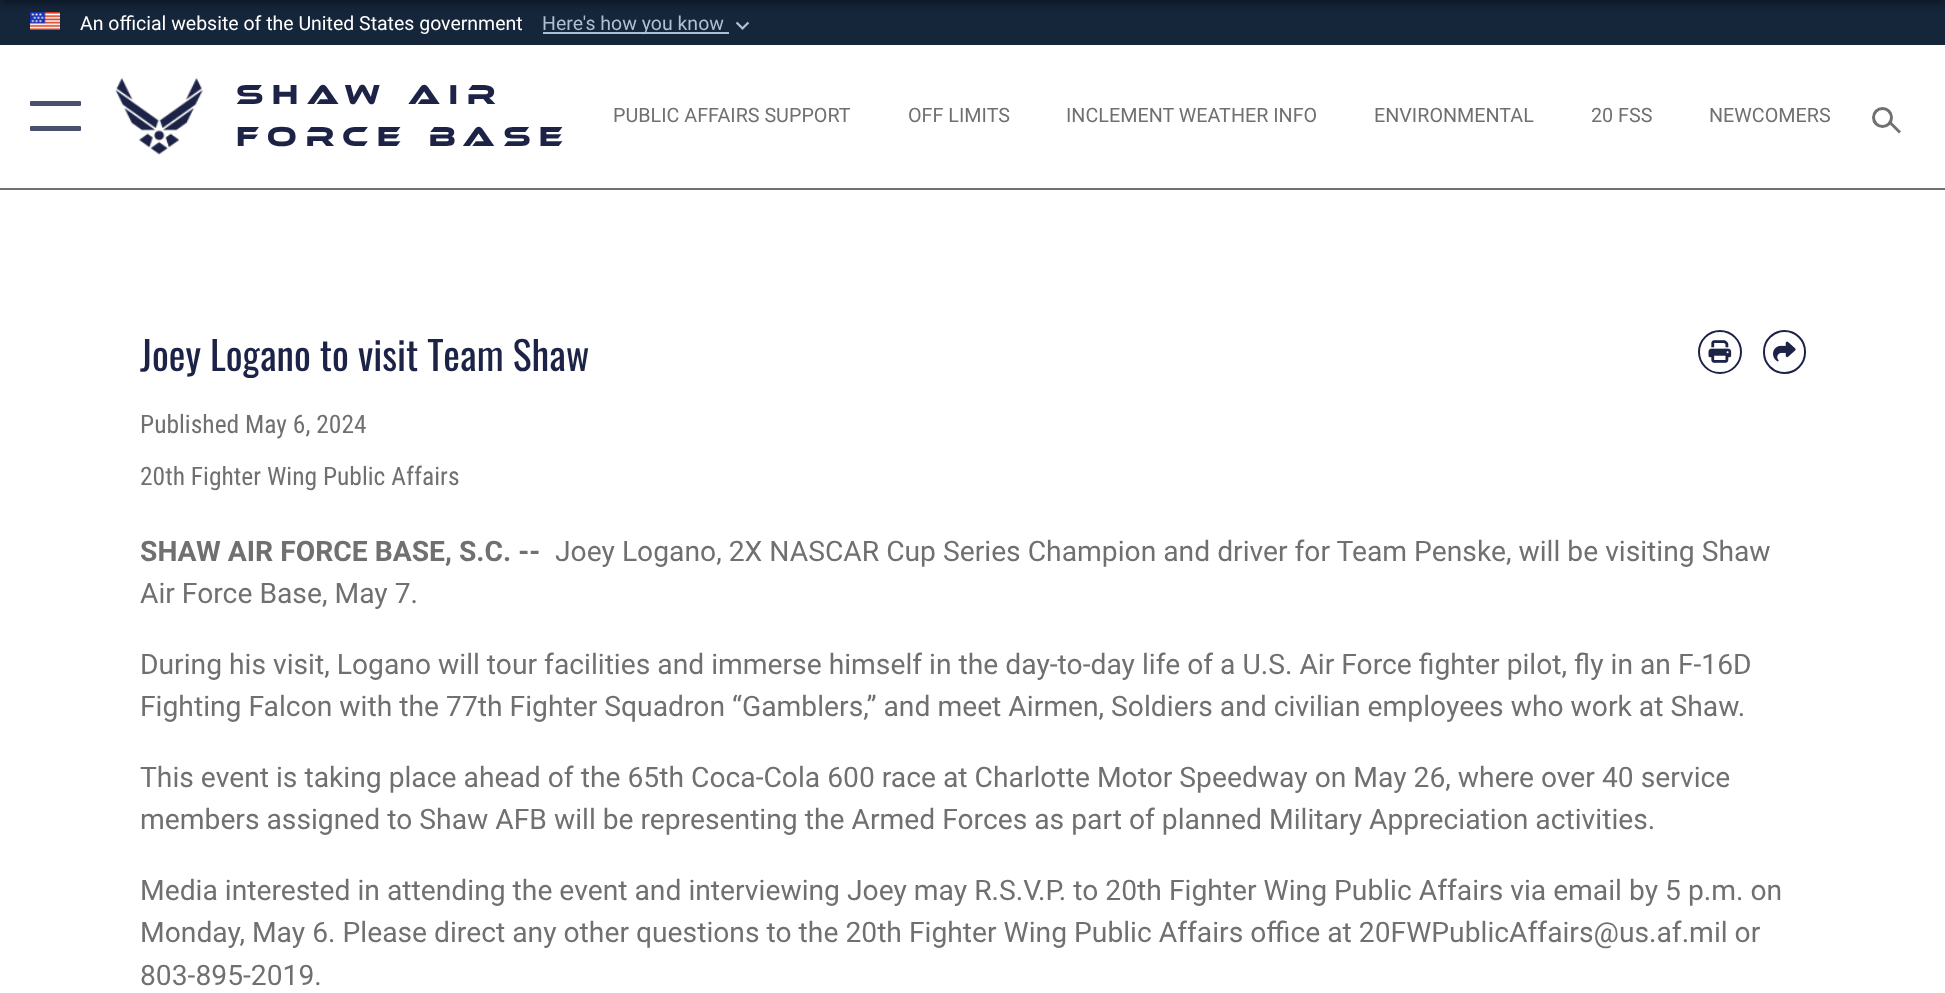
<svg xmlns="http://www.w3.org/2000/svg" width="1945" height="993" viewBox="0 0 1945 993">
  <style>
    .t1 { font: 19.5px Roboto; fill: #fff; }
    .t2 { font: 19.5px Roboto; fill: #aebfd4; }
    .t3 { font: 28.28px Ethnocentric; letter-spacing: 8.5px; fill: #1c2347; }
    .t4 { font: 19.75px Roboto; fill: #707070; }
    .t5 { font: 39.6px Oswald; fill: #1c2347; }
    .t6 { font: 25.5px Roboto Condensed; fill: #707070; }
    .t7 { font: 28.28px Roboto; fill: #707070; }
    .t8 { font: bold 28.28px Roboto; fill: #707070; }
  </style>
  <rect width="100%" height="100%" fill="#fff"/>
  <rect x="0" y="0" width="1945" height="45" fill="#15263b"/>
  <image x="30" y="12" width="30" height="18" href="images/1.png"/>
  <text x="80" y="30" class="t1">An official website of the United States government</text>
  <rect x="543" y="32" width="186" height="2" fill="#aebfd4"/>
  <text x="542" y="30" class="t2">Here's how you know</text>
  <image x="735" y="21" width="15" height="9" href="images/2.png"/>
  <rect x="0" y="-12" width="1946" height="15" fill="#02040680" filter="blur(4px)"/>
  <rect x="0" y="188" width="1945" height="2" fill="#707070"/>
  <rect x="30" y="101" width="51" height="5" rx="1" fill="#49506d"/>
  <rect x="30" y="126" width="51" height="5" rx="1" fill="#49506d"/>
  <image x="115" y="77" width="88" height="78" href="images/3.png"/>
  <text x="236" y="104" class="t3">Shaw Air</text>
  <text x="236" y="146" class="t3">Force Base</text>
  <text x="613" y="122" class="t4">PUBLIC AFFAIRS SUPPORT</text>
  <text x="908" y="122" class="t4">OFF LIMITS</text>
  <text x="1066" y="122" class="t4">INCLEMENT WEATHER INFO</text>
  <text x="1374" y="122" class="t4">ENVIRONMENTAL</text>
  <text x="1591" y="122" class="t4">20 FSS</text>
  <text x="1709" y="122" class="t4">NEWCOMERS</text>
  <circle cx="1882.5" cy="117.5" r="9" fill="none" stroke="#707070" stroke-width="3"/>
  <path d="M1890.5 121L1901 131.5L1899 133.5L1888.5 123Z" fill="#707070"/>
  <text x="140" y="371" class="t5">Joey Logano to visit Team Shaw</text>
  <circle cx="1720" cy="352" r="21" fill="none" stroke="#1c2347" stroke-width="2"/>
  <image x="1708" y="340" width="24" height="23" href="images/4.png"/>
  <rect x="1764" y="331" width="41" height="42" rx="20.5" fill="none" stroke="#1c2347" stroke-width="2"/>
  <image x="1773" y="341" width="23" height="21" href="images/5.png"/>
  <text x="140" y="433" class="t6">Published May 6, 2024</text>
  <text x="140" y="485" class="t6">20th Fighter Wing Public Affairs</text>
  <text x="555" y="561" class="t7">Joey Logano, 2X NASCAR Cup Series Champion and driver for Team Penske, will be visiting Shaw</text>
  <text x="140" y="603" class="t7">Air Force Base, May 7.</text>
  <text x="140" y="561" class="t8">SHAW AIR FORCE BASE, S.C. --</text>
  <text x="140" y="674" class="t7">During his visit, Logano will tour facilities and immerse himself in the day-to-day life of a U.S. Air Force fighter pilot, fly in an F-16D</text>
  <text x="140" y="716" class="t7">Fighting Falcon with the 77th Fighter Squadron “Gamblers,” and meet Airmen, Soldiers and civilian employees who work at Shaw.</text>
  <text x="140" y="787" class="t7">This event is taking place ahead of the 65th Coca-Cola 600 race at Charlotte Motor Speedway on May 26, where over 40 service</text>
  <text x="140" y="829" class="t7">members assigned to Shaw AFB will be representing the Armed Forces as part of planned Military Appreciation activities.</text>
  <text x="140" y="900" class="t7">Media interested in attending the event and interviewing Joey may R.S.V.P. to 20th Fighter Wing Public Affairs via email by 5 p.m. on</text>
  <text x="140" y="942" class="t7">Monday, May 6. Please direct any other questions to the 20th Fighter Wing Public Affairs office at 20FWPublicAffairs@us.af.mil or</text>
  <text x="140" y="985" class="t7">803-895-2019.</text>
</svg>
